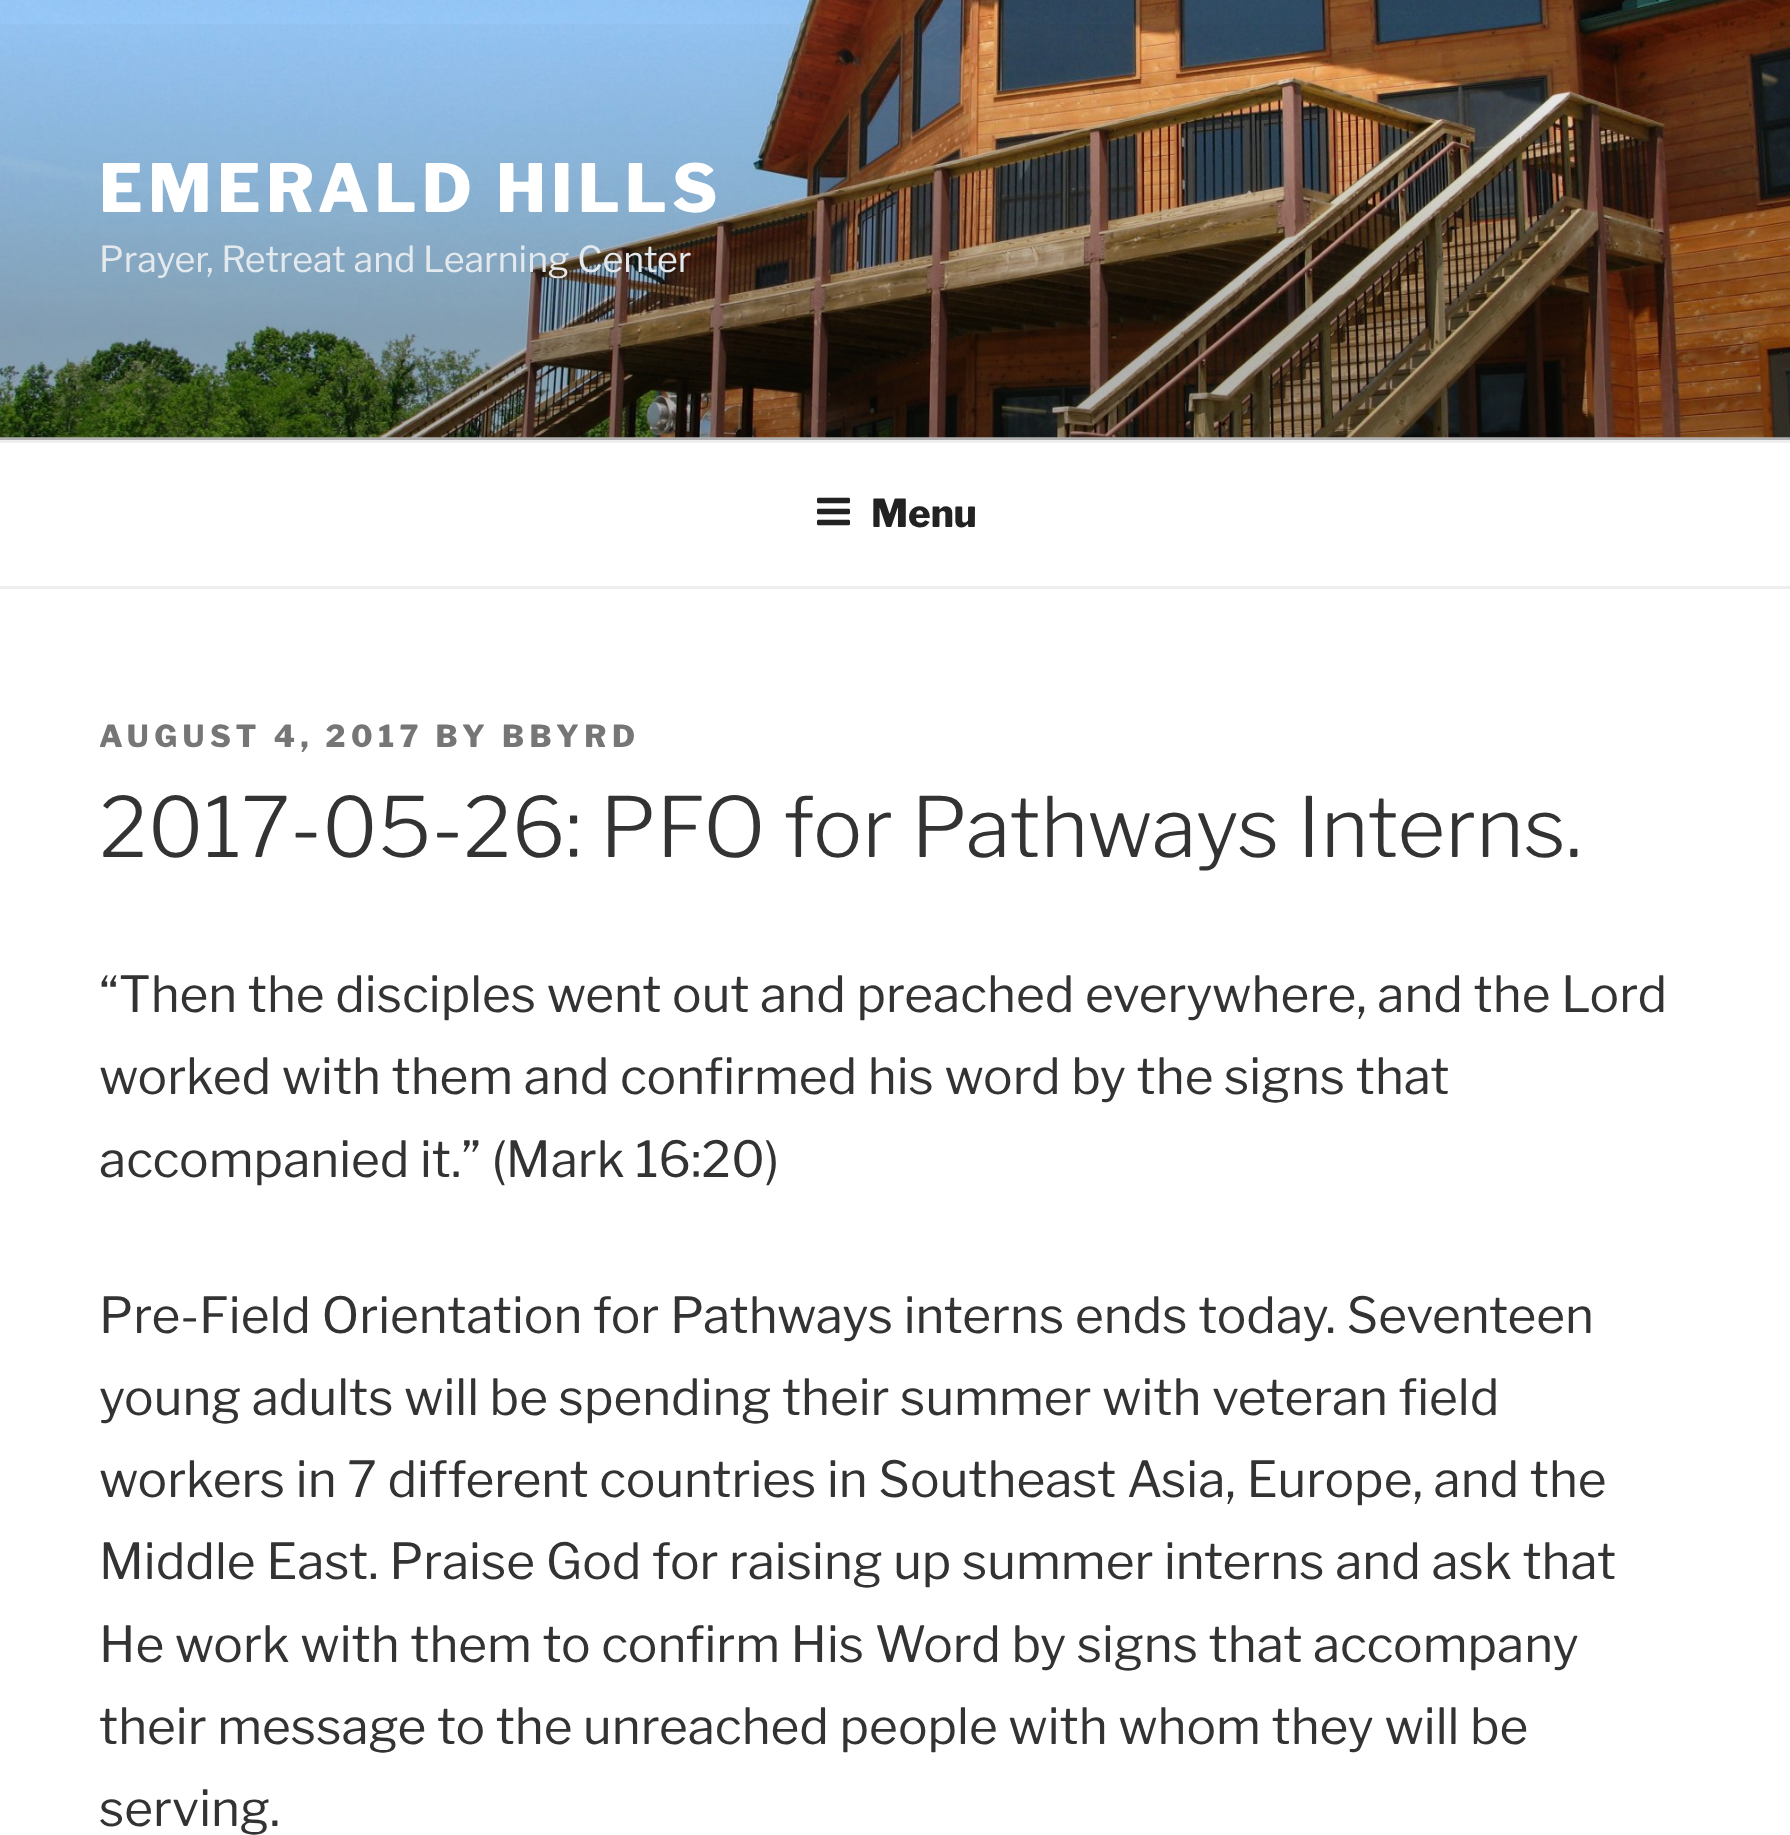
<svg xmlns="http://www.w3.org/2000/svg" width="1790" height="1835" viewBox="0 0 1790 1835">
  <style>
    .t1 { font: 100 66px Libre Franklin; letter-spacing: 5.25px; fill: #fff; }
    .t2 { font: 100 35.75px 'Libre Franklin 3'; fill: #e4e9ed; }
    .t3 { font: 100 38.5px Libre Franklin; fill: #222; }
    .t4 { font: 100 30.25px Libre Franklin; letter-spacing: 5.5px; fill: #767676; }
    .t5 { font: 100 82.5px 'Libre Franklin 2'; fill: #333; }
    .t6 { font: 100 49.5px 'Libre Franklin 3'; fill: #333; }
  </style>
  <defs>
    <linearGradient id="g1" gradientUnits="userSpaceOnUse" x1="895" y1="0" x2="895" y2="440"><stop offset="0" stop-color="#000" stop-opacity="0"/><stop offset="0.75" stop-color="#000" stop-opacity="0.3"/><stop offset="1" stop-color="#000" stop-opacity="0.3"/></linearGradient>
  </defs>
  <rect width="100%" height="100%" fill="#fff"/>
  <rect x="0" y="437" width="1790" height="3" fill="#fafafa"/>
  <image x="0" y="0" width="1790" height="438" href="images/1.png"/>
  <rect x="0" y="24" width="1790" height="416" fill="url(#g1)"/>
  <text x="99" y="212" class="t1">EMERALD HILLS</text>
  <text x="99" y="272" class="t2">Prayer, Retreat and Learning Center</text>
  <rect x="0" y="440" width="1790" height="3" fill="#eee"/>
  <rect x="0" y="586" width="1790" height="3" fill="#eee"/>
  <image x="817" y="497" width="33" height="29" href="images/2.png"/>
  <text x="871" y="527" class="t3">Menu</text>
  <text x="99" y="747" class="t4">AUGUST 4, 2017 BY BBYRD</text>
  <text x="99" y="857" class="t5">2017-05-26: PFO for Pathways Interns.</text>
  <text x="99" y="1012" class="t6">“Then the disciples went out and preached everywhere, and the Lord</text>
  <text x="99" y="1094" class="t6">worked with them and confirmed his word by the signs that</text>
  <text x="99" y="1177" class="t6">accompanied it.” (Mark 16:20)</text>
  <text x="99" y="1333" class="t6">Pre-Field Orientation for Pathways interns ends today. Seventeen</text>
  <text x="99" y="1415" class="t6">young adults will be spending their summer with veteran field</text>
  <text x="99" y="1497" class="t6">workers in 7 different countries in Southeast Asia, Europe, and the</text>
  <text x="99" y="1579" class="t6">Middle East. Praise God for raising up summer interns and ask that</text>
  <text x="99" y="1662" class="t6">He work with them to confirm His Word by signs that accompany</text>
  <text x="99" y="1744" class="t6">their message to the unreached people with whom they will be</text>
  <text x="99" y="1826" class="t6">serving.</text>
</svg>
